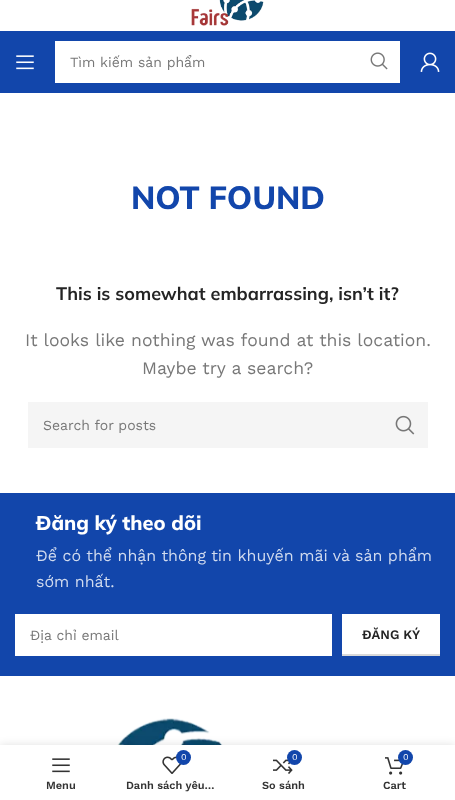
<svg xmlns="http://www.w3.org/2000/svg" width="455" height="800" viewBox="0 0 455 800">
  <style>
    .t1 { font: 14px Work Sans; fill: #777; }
    .t2 { font: 800 32px Mulish; fill: #1246ab; }
    .t3 { font: bold 18px Mulish; fill: #242424; }
    .t4 { font: 17.6px Work Sans; fill: #777; }
    .t5 { font: 800 20px Mulish; fill: #fff; }
    .t6 { font: 16px Work Sans; fill: #d0daee; }
    .t7 { font: 600 13px Work Sans; fill: #242424; }
    .t8 { font: 600 11px Work Sans; fill: #333; }
    .t9 { font: 9px Work Sans; fill: #fff; }
  </style>
  <rect width="100%" height="100%" fill="#fff"/>
  <image x="191" y="0" width="73" height="26" href="images/1.png"/>
  <rect x="0" y="31" width="455" height="62" fill="#1246ab"/>
  <image x="16" y="55" width="18" height="15" href="images/2.png"/>
  <rect x="55" y="41" width="345" height="42" fill="#fff"/>
  <text x="70" y="67" class="t1">Tìm kiếm sản phẩm</text>
  <image x="370" y="52" width="18" height="18" href="images/3.png"/>
  <image x="420" y="52" width="20" height="20" href="images/4.png"/>
  <text x="131" y="209" class="t2">NOT FOUND</text>
  <text x="56" y="300" class="t3">This is somewhat embarrassing, isn’t it?</text>
  <text x="25" y="346" class="t4">It looks like nothing was found at this location.</text>
  <text x="142" y="374" class="t4">Maybe try a search?</text>
  <rect x="28" y="402" width="400" height="46" fill="#f5f5f5"/>
  <text x="43" y="430" class="t1">Search for posts</text>
  <image x="395" y="415" width="20" height="20" href="images/5.png"/>
  <rect x="0" y="493" width="455" height="183" fill="#1246ab"/>
  <text x="36" y="530" class="t5">Đăng ký theo dõi</text>
  <text x="36" y="561" class="t6">Để có thể nhận thông tin khuyến mãi và sản phẩm</text>
  <text x="36" y="587" class="t6">sớm nhất.</text>
  <rect x="15" y="614" width="317" height="42" fill="#fff"/>
  <text x="30" y="640" class="t1">Địa chỉ email</text>
  <rect x="342" y="614" width="98" height="40" fill="#fff"/>
  <rect x="342" y="654" width="98" height="2" fill="#d9d9d9"/>
  <text x="362" y="639" class="t7">ĐĂNG KÝ</text>
  <image x="117" y="718" width="106" height="27" href="images/6.png"/>
  <rect x="0" y="745" width="455" height="55" fill="#0000001f" filter="blur(4.5px)"/>
  <rect x="0" y="745" width="455" height="55" fill="#fff"/>
  <image x="52" y="758" width="18" height="15" href="images/7.png"/>
  <text x="46" y="789" class="t8">Menu</text>
  <image x="162" y="756" width="20" height="18" href="images/8.png"/>
  <circle cx="183.5" cy="757.5" r="7.5" fill="#1246ab"/>
  <text x="181" y="760" class="t9">0</text>
  <text x="126" y="789" class="t8">Danh sách yêu…</text>
  <image x="273" y="759" width="20" height="15" href="images/9.png"/>
  <circle cx="294.5" cy="757.5" r="7.5" fill="#1246ab"/>
  <text x="292" y="760" class="t9">0</text>
  <text x="262" y="789" class="t8">So sánh</text>
  <image x="385" y="757" width="19" height="18" href="images/10.png"/>
  <circle cx="405.5" cy="757.5" r="7.5" fill="#1246ab"/>
  <text x="403" y="760" class="t9">0</text>
  <text x="383" y="789" class="t8">Cart</text>
</svg>
